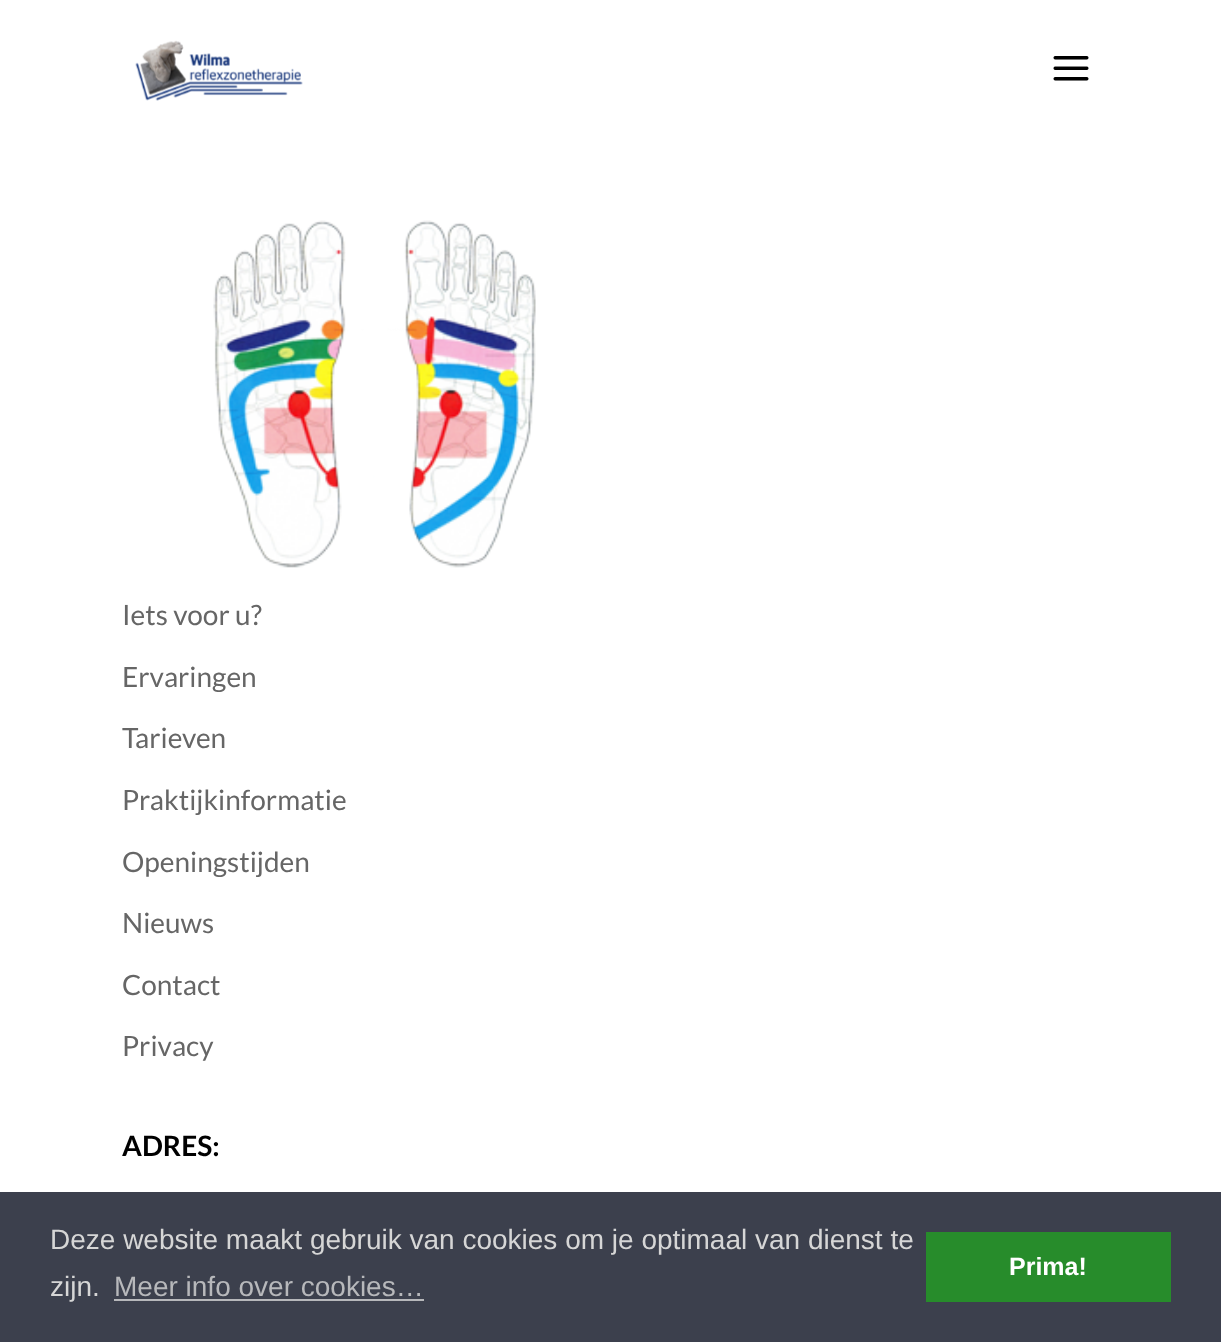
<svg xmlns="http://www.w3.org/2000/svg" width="1221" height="1342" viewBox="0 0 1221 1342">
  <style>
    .t1 { font: 28px Lato; fill: #666; }
    .t2 { font: bold 28px Lato; fill: #000; }
    .t3 { font: 28px Liberation Sans; fill: #d6d6d6; }
    .t4 { font: 28px Liberation Sans; fill: #b7b8bb; }
    .t5 { font: bold 25px Liberation Sans; fill: #fff; }
  </style>
  <rect width="100%" height="100%" fill="#fff"/>
  <image x="135" y="40" width="168" height="61" href="images/1.png"/>
  <image x="1053" y="56" width="36" height="25" href="images/2.png"/>
  <image x="213" y="220" width="323" height="348" href="images/3.png"/>
  <text x="122" y="625" class="t1">Iets voor u?</text>
  <text x="122" y="687" class="t1">Ervaringen</text>
  <text x="122" y="748" class="t1">Tarieven</text>
  <text x="122" y="810" class="t1">Praktijkinformatie</text>
  <text x="122" y="872" class="t1">Openingstijden</text>
  <text x="122" y="933" class="t1">Nieuws</text>
  <text x="122" y="995" class="t1">Contact</text>
  <text x="122" y="1056" class="t1">Privacy</text>
  <text x="122" y="1156" class="t2">ADRES:</text>
  <rect x="0" y="1192" width="1221" height="150" fill="#3c404d"/>
  <text x="50" y="1249" class="t3">Deze website maakt gebruik van cookies om je optimaal van dienst te</text>
  <text x="50" y="1296" class="t3">zijn.</text>
  <text x="114" y="1296" class="t4">Meer info over cookies…</text>
  <rect x="114" y="1299" width="310" height="2" fill="#b7b8bb"/>
  <rect x="926" y="1232" width="245" height="70" fill="#278c2b"/>
  <text x="1009" y="1275" class="t5">Prima!</text>
</svg>
